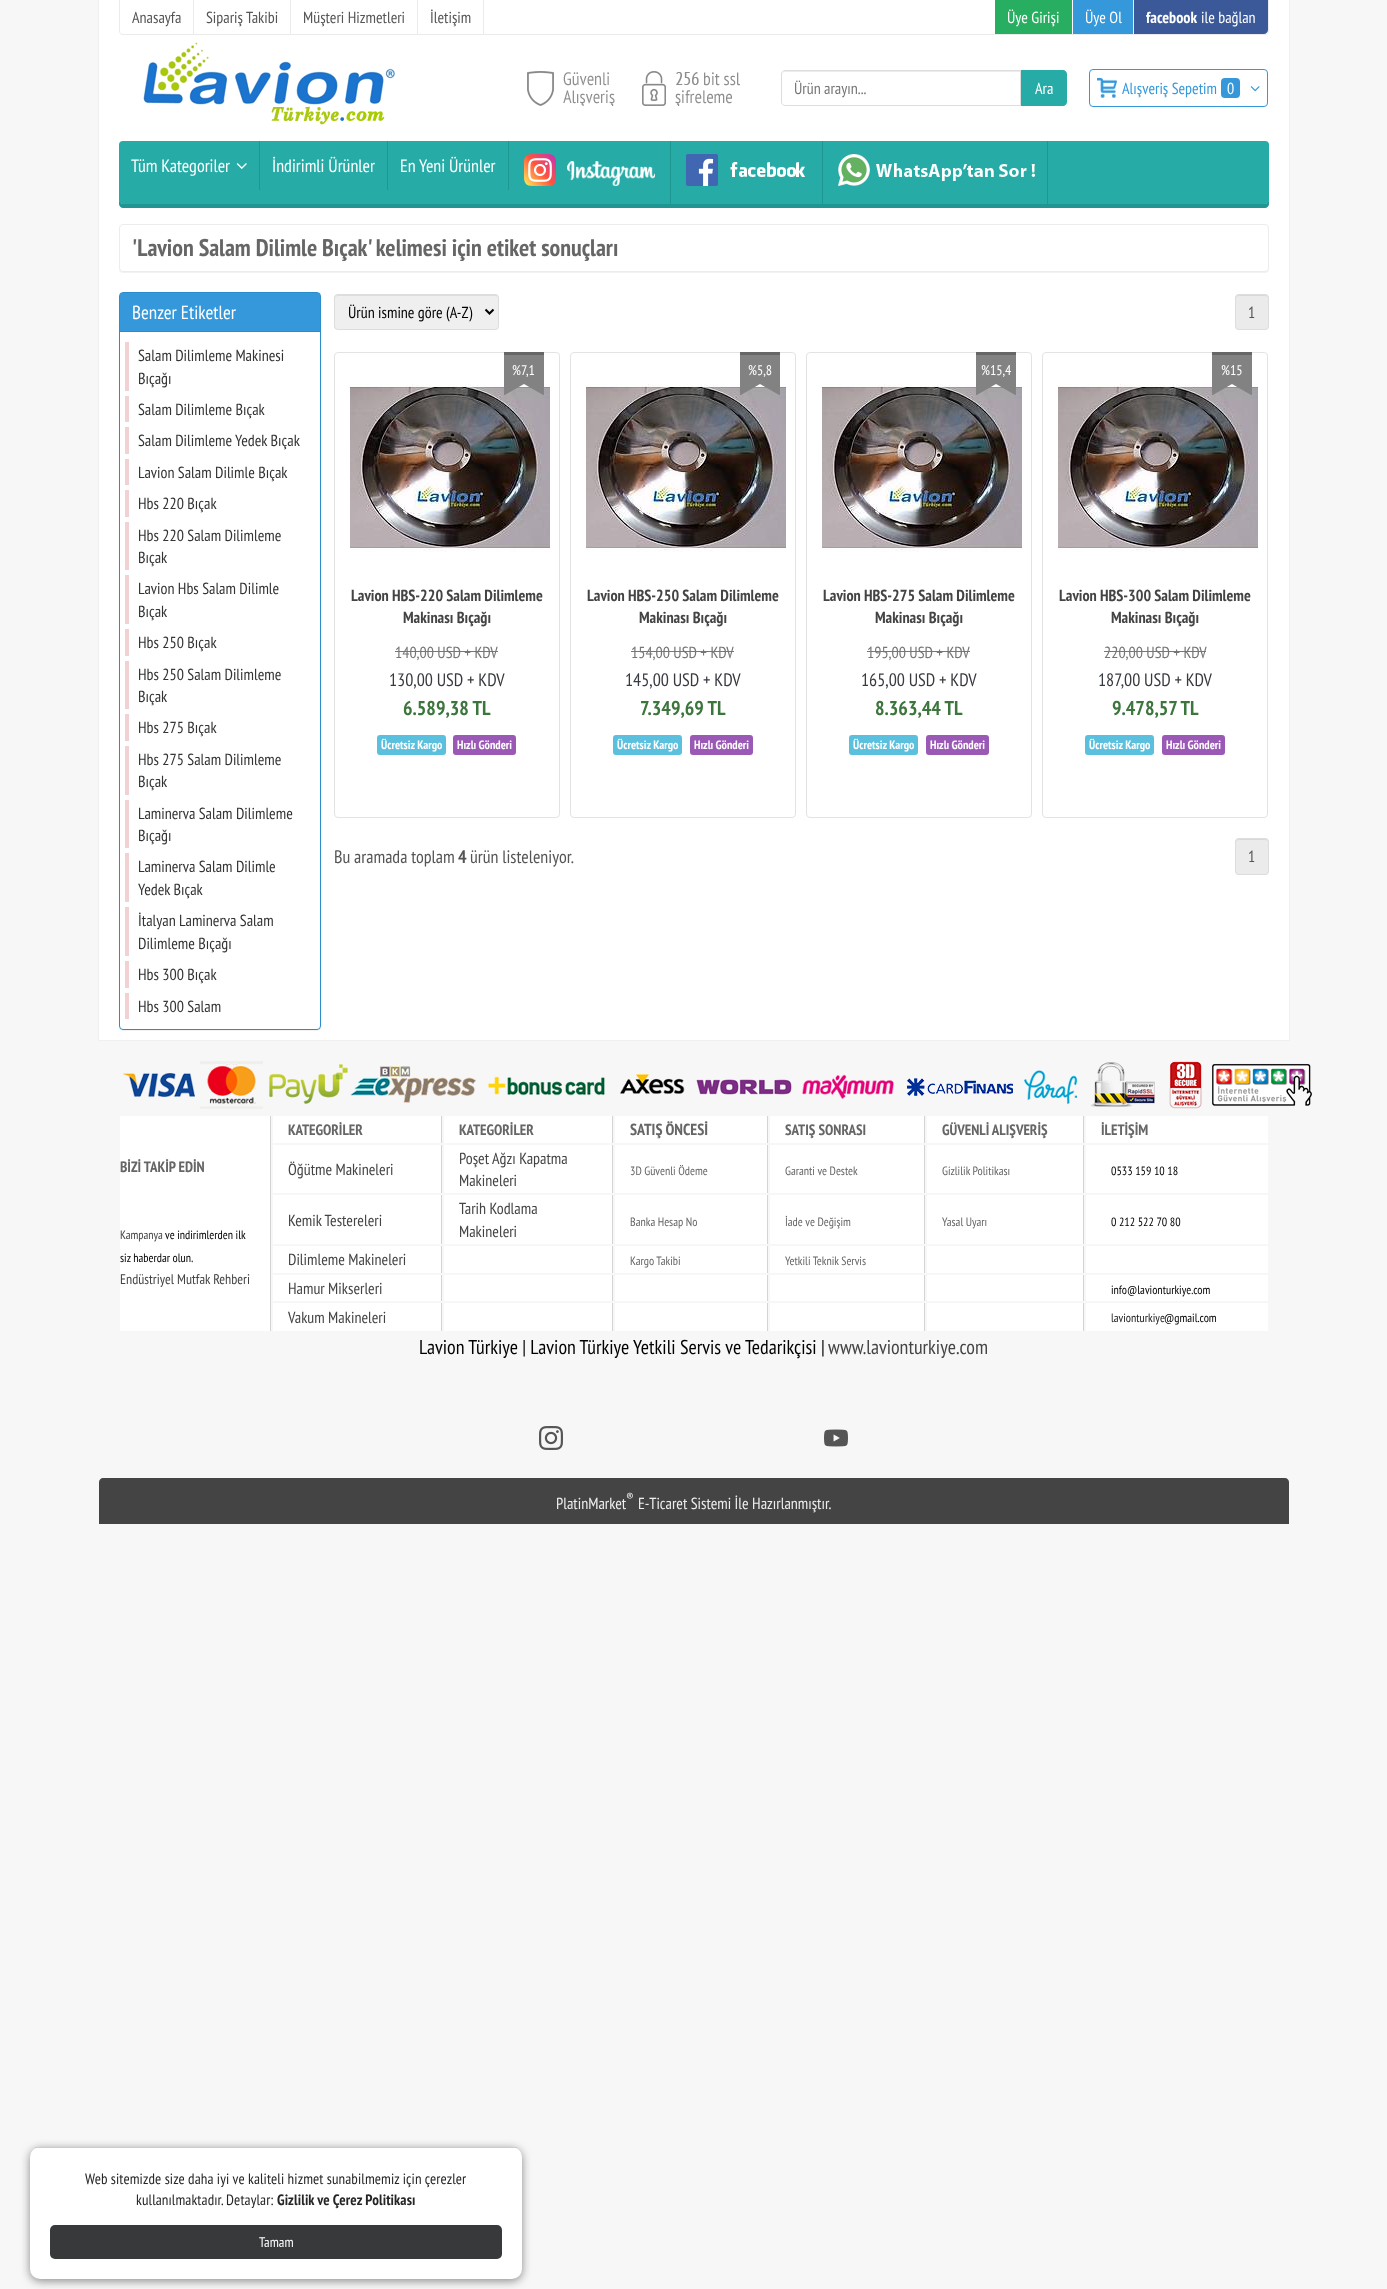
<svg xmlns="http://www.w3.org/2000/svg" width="1387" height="2289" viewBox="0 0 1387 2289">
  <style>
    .t1 { font: 16px PT Sans Narrow; fill: #555; }
    .t2 { font: 16px PT Sans Narrow; fill: #fff; }
    .t3 { font: bold 16px PT Sans Narrow; fill: #fff; }
    .t4 { font: 16px PT Sans Narrow; fill: #757575; }
    .t5 { font: 16px PT Sans Narrow; fill: #3498db; }
    .t6 { font: 18px PT Sans Narrow; fill: #fff; }
    .t7 { font: 15px PT Sans Narrow; letter-spacing: 0.1px; fill: #262626; }
    .t8 { font: bold 15px PT Sans Narrow; letter-spacing: 0.1px; fill: #262626; }
    .t9 { font: 14px PT Sans Narrow; fill: #fff; }
    .t10 { font: bold 24px PT Sans Narrow; fill: #666; }
    .t11 { font: 19px PT Sans Narrow; fill: #fff; }
    .t12 { font: 16px PT Sans Narrow; fill: #333; }
    .t13 { font: 16px PT Sans Narrow; fill: #000; }
    .t14 { font: bold 12px PT Sans Narrow; fill: #fff; }
    .t15 { font: bold 16px PT Sans Narrow; fill: #444; }
    .t16 { font: 18px PT Sans Narrow; fill: #373a3f; }
    .t17 { font: bold 20px PT Sans Narrow; fill: #3c763d; }
    .t18 { font: 18px PT Sans Narrow; fill: #555; }
    .t19 { font: bold 18px PT Sans Narrow; fill: #555; }
    .t20 { font: bold 15px PT Sans Narrow; fill: #666; }
    .t21 { font: bold 16px PT Sans Narrow; fill: #666; }
    .t22 { font: 12px PT Sans Narrow; fill: #444; }
    .t23 { font: 12px PT Sans Narrow; fill: #000; }
    .t24 { font: 14px PT Sans Narrow; fill: #444; }
    .t25 { font: 16px PT Sans Narrow; fill: #444; }
    .t26 { font: 12px PT Sans Narrow; fill: #666; }
    .t27 { font: 12px PT Sans Narrow; fill: #1a1a1a; }
    .t28 { font: 20px PT Sans Narrow; fill: #000; }
    .t29 { font: 20px PT Sans Narrow; fill: #444; }
    .t30 { font: 16px PT Sans Narrow; fill: #eee; }
    .t31 { font: 13px PT Sans Narrow; fill: #eee; }
  </style>
  <defs>
    <clipPath id="clip1"><path d="M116 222H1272V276H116ZM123 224H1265C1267 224 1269 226 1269 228V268C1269 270 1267 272 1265 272H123C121 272 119 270 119 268V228C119 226 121 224 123 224Z" clip-rule="evenodd"/></clipPath>
    <clipPath id="clip2"><path d="M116 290H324V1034H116ZM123 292H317C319 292 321 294 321 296V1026C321 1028 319 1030 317 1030H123C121 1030 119 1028 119 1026V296C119 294 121 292 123 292Z" clip-rule="evenodd"/></clipPath>
  </defs>
  <rect width="100%" height="100%" fill="#f7f7f7"/>
  <rect x="99" y="0" width="1190" height="1040" fill="#fff"/>
  <rect x="1289" y="0" width="1" height="1040" fill="#f0f0f0"/>
  <rect x="98" y="0" width="1" height="1040" fill="#f0f0f0"/>
  <path d="M119 0H1269V31C1269 33 1267 35 1265 35H123C121 35 119 33 119 31ZM120 0H1268V31C1268 33 1267 34 1265 34H123C121 34 120 33 120 31Z" fill="#ebebeb" fill-rule="evenodd"/>
  <rect x="193" y="0" width="1" height="34" fill="#ebebeb"/>
  <text x="132" y="23" class="t1">Anasayfa</text>
  <rect x="290" y="0" width="1" height="34" fill="#ebebeb"/>
  <text x="206" y="23" class="t1">Sipariş Takibi</text>
  <rect x="417" y="0" width="1" height="34" fill="#ebebeb"/>
  <text x="303" y="23" class="t1">Müşteri Hizmetleri</text>
  <rect x="483" y="0" width="1" height="34" fill="#ebebeb"/>
  <text x="430" y="23" class="t1">İletişim</text>
  <rect x="995" y="0" width="77" height="34" fill="#27ae60"/>
  <text x="1007" y="23" class="t2">Üye Girişi</text>
  <rect x="1073" y="0" width="60" height="34" fill="#3498db"/>
  <text x="1085" y="23" class="t2">Üye Ol</text>
  <path d="M1133 0H1268V30C1268 32 1266 34 1264 34H1133Z" fill="#3b5998"/>
  <rect x="1133" y="0" width="1" height="34" fill="#ebebeb"/>
  <text x="1146" y="23" class="t3">facebook</text>
  <text x="1201" y="23" class="t2">ile bağlan</text>
  <image x="143" y="42" width="252" height="83" href="images/1.png"/>
  <image x="527" y="71" width="213" height="35" href="images/2.png"/>
  <path d="M785 72H1020V71H785C783 71 782 73 782 75C782 73 783 72 785 72Z" fill="#ececec"/>
  <path d="M785 70.5H1020.5V105.5H785C783 105.5 781.5 104 781.5 102V74C781.5 72 783 70.5 785 70.5Z" fill="none" stroke="#ddd"/>
  <text x="794" y="94" class="t4">Ürün arayın...</text>
  <path d="M1021 70H1063C1065 70 1067 72 1067 74V102C1067 104 1065 106 1063 106H1021Z" fill="#27aba6"/>
  <text x="1035" y="94" class="t2">Ara</text>
  <image x="1097" y="77" width="20" height="21" href="images/3.png"/>
  <rect x="1089.5" y="69.5" width="178" height="37" rx="3.5" fill="none" stroke="#3498db"/>
  <text x="1122" y="94" class="t5">Alışveriş Sepetim</text>
  <rect x="1221" y="78" width="19" height="20" rx="4" fill="#3498db"/>
  <text x="1227" y="94" class="t2">0</text>
  <image x="1250" y="86" width="10" height="6" href="images/4.png"/>
  <rect x="119" y="141" width="1150" height="63" rx="4" fill="#27aba6"/>
  <path d="M119 200V204C119 206 121 208 123 208H1265C1267 208 1269 206 1269 204V200C1269 202 1267 204 1265 204H123C121 204 119 202 119 200Z" fill="#1f9691"/>
  <rect x="259" y="141" width="1" height="49" fill="#1f9691"/>
  <text x="131" y="172" class="t6">Tüm Kategoriler</text>
  <image x="236" y="163" width="11" height="6" href="images/5.png"/>
  <rect x="387" y="141" width="1" height="49" fill="#1f9691"/>
  <text x="272" y="172" class="t6">İndirimli Ürünler</text>
  <rect x="508" y="141" width="1" height="49" fill="#1f9691"/>
  <text x="400" y="172" class="t6">En Yeni Ürünler</text>
  <rect x="670" y="141" width="1" height="63" fill="#1f9691"/>
  <image x="524" y="154" width="131" height="32" href="images/6.png"/>
  <rect x="822" y="141" width="1" height="63" fill="#1f9691"/>
  <image x="686" y="154" width="119" height="32" href="images/7.png"/>
  <rect x="1047" y="141" width="1" height="63" fill="#1f9691"/>
  <image x="838" y="154" width="197" height="32" href="images/8.png"/>
  <rect x="30" y="2149" width="492" height="132" rx="10" fill="#888" filter="blur(5px)"/>
  <rect x="30" y="2147" width="492" height="132" rx="10" fill="#fff"/>
  <rect x="35" y="2147" width="482" height="1" fill="#ccc"/>
  <text x="85" y="2184" class="t7">Web sitemizde size daha iyi ve kaliteli hizmet sunabilmemiz için çerezler</text>
  <text x="136" y="2205" class="t7">kullanılmaktadır. Detaylar:</text>
  <text x="277" y="2205" class="t8">Gizlilik ve Çerez Politikası</text>
  <rect x="50" y="2225" width="452" height="34" rx="5" fill="#37393b"/>
  <text x="259" y="2247" class="t9">Tamam</text>
  <g clip-path="url(#clip1)">
    <rect x="119" y="225" width="1150" height="48" rx="4" fill="#0000000d" filter="blur(0.5px)"/>
  </g>
  <rect x="119.5" y="224.5" width="1149" height="47" rx="3.5" fill="none" stroke="#ececec"/>
  <text x="132" y="256" class="t10">'Lavion Salam Dilimle Bıçak' kelimesi için etiket sonuçları</text>
  <g clip-path="url(#clip2)">
    <rect x="119" y="293" width="202" height="738" rx="4" fill="#0000000d" filter="blur(0.5px)"/>
  </g>
  <rect x="119.5" y="292.5" width="201" height="737" rx="3.5" fill="none" stroke="#2b8ccd"/>
  <rect x="120" y="293" width="200" height="38" fill="#3498db"/>
  <rect x="120" y="331" width="200" height="1" fill="#2b8ccd"/>
  <text x="132" y="319" class="t11">Benzer Etiketler</text>
  <rect x="125" y="342" width="4" height="49" fill="#f1d1d1"/>
  <text x="138" y="361" class="t12">Salam Dilimleme Makinesi</text>
  <text x="138" y="384" class="t12">Bıçağı</text>
  <rect x="125" y="396" width="4" height="26" fill="#f1d1d1"/>
  <text x="138" y="415" class="t12">Salam Dilimleme Bıçak</text>
  <rect x="125" y="427" width="4" height="27" fill="#f1d1d1"/>
  <text x="138" y="446" class="t12">Salam Dilimleme Yedek Bıçak</text>
  <rect x="125" y="459" width="4" height="26" fill="#f1d1d1"/>
  <text x="138" y="478" class="t12">Lavion Salam Dilimle Bıçak</text>
  <rect x="125" y="490" width="4" height="27" fill="#f1d1d1"/>
  <text x="138" y="509" class="t12">Hbs 220 Bıçak</text>
  <rect x="125" y="522" width="4" height="48" fill="#f1d1d1"/>
  <text x="138" y="541" class="t12">Hbs 220 Salam Dilimleme</text>
  <text x="138" y="563" class="t12">Bıçak</text>
  <rect x="125" y="575" width="4" height="49" fill="#f1d1d1"/>
  <text x="138" y="594" class="t12">Lavion Hbs Salam Dilimle</text>
  <text x="138" y="617" class="t12">Bıçak</text>
  <rect x="125" y="629" width="4" height="27" fill="#f1d1d1"/>
  <text x="138" y="648" class="t12">Hbs 250 Bıçak</text>
  <rect x="125" y="661" width="4" height="48" fill="#f1d1d1"/>
  <text x="138" y="680" class="t12">Hbs 250 Salam Dilimleme</text>
  <text x="138" y="702" class="t12">Bıçak</text>
  <rect x="125" y="714" width="4" height="27" fill="#f1d1d1"/>
  <text x="138" y="733" class="t12">Hbs 275 Bıçak</text>
  <rect x="125" y="746" width="4" height="49" fill="#f1d1d1"/>
  <text x="138" y="765" class="t12">Hbs 275 Salam Dilimleme</text>
  <text x="138" y="787" class="t12">Bıçak</text>
  <rect x="125" y="800" width="4" height="48" fill="#f1d1d1"/>
  <text x="138" y="819" class="t12">Laminerva Salam Dilimleme</text>
  <text x="138" y="841" class="t12">Bıçağı</text>
  <rect x="125" y="853" width="4" height="49" fill="#f1d1d1"/>
  <text x="138" y="872" class="t12">Laminerva Salam Dilimle</text>
  <text x="138" y="895" class="t12">Yedek Bıçak</text>
  <rect x="125" y="907" width="4" height="49" fill="#f1d1d1"/>
  <text x="138" y="926" class="t12">İtalyan Laminerva Salam</text>
  <text x="138" y="949" class="t12">Dilimleme Bıçağı</text>
  <rect x="125" y="961" width="4" height="27" fill="#f1d1d1"/>
  <text x="138" y="980" class="t12">Hbs 300 Bıçak</text>
  <rect x="125" y="993" width="4" height="26" fill="#f1d1d1"/>
  <text x="138" y="1012" class="t12">Hbs 300 Salam</text>
  <rect x="334" y="294" width="165" height="36" rx="4" fill="#efefef"/>
  <path d="M338 296H495C497 296 498 297 498 299C498 297 497 295 495 295H338C336 295 335 297 335 299C335 297 336 296 338 296Z" fill="#ddd"/>
  <rect x="334.5" y="294.5" width="164" height="35" rx="3.5" fill="none" stroke="#ddd"/>
  <path d="M485.5 309.5L489.5 313.5L493.5 309.5" fill="none" stroke="#000" stroke-width="2"/>
  <text x="348" y="318" class="t13">Ürün ismine göre (A-Z)</text>
  <rect x="1235" y="294" width="34" height="36" rx="4" fill="#ebebeb"/>
  <path d="M1239 296H1265C1267 296 1268 297 1268 299C1268 294 1264.5 295 1260.5 295H1243.5C1239.5 295 1236 294 1236 299C1236 297 1237 296 1239 296Z" fill="#d9d9d9"/>
  <rect x="1235.5" y="294.5" width="33" height="35" rx="3.5" fill="none" stroke="#ddd"/>
  <text x="1248" y="318" class="t1">1</text>
  <rect x="334.5" y="352.5" width="225" height="465" rx="3.5" fill="none" stroke="#e3e3e3"/>
  <image x="350" y="384" width="200" height="168" href="images/10.png"/>
  <image x="504" y="355" width="40" height="40" href="images/9.png"/>
  <rect x="504" y="352" width="40" height="3" fill="#666"/>
  <text x="512" y="375" class="t9">%7,1</text>
  <rect x="377" y="735" width="69" height="20" rx="3" fill="#5bc0de"/>
  <text x="381" y="749" class="t14">Ücretsiz Kargo</text>
  <rect x="453" y="735" width="63" height="20" rx="3" fill="#9b59b6"/>
  <text x="457" y="749" class="t14">Hızlı Gönderi</text>
  <text x="351" y="601" class="t15">Lavion HBS-220 Salam Dilimleme</text>
  <text x="403" y="623" class="t15">Makinası Bıçağı</text>
  <text x="395" y="658" class="t4">140,00 USD + KDV</text>
  <rect x="395" y="651" width="103" height="1" fill="#777"/>
  <text x="389" y="686" class="t16">130,00 USD + KDV</text>
  <text x="403" y="715" class="t17">6.589,38 TL</text>
  <rect x="570.5" y="352.5" width="225" height="465" rx="3.5" fill="none" stroke="#e3e3e3"/>
  <image x="586" y="384" width="200" height="168" href="images/10.png"/>
  <image x="740" y="355" width="40" height="40" href="images/9.png"/>
  <rect x="740" y="352" width="40" height="3" fill="#666"/>
  <text x="748" y="375" class="t9">%5,8</text>
  <rect x="613" y="735" width="69" height="20" rx="3" fill="#5bc0de"/>
  <text x="617" y="749" class="t14">Ücretsiz Kargo</text>
  <rect x="690" y="735" width="63" height="20" rx="3" fill="#9b59b6"/>
  <text x="694" y="749" class="t14">Hızlı Gönderi</text>
  <text x="587" y="601" class="t15">Lavion HBS-250 Salam Dilimleme</text>
  <text x="639" y="623" class="t15">Makinası Bıçağı</text>
  <text x="631" y="658" class="t4">154,00 USD + KDV</text>
  <rect x="631" y="651" width="103" height="1" fill="#777"/>
  <text x="625" y="686" class="t16">145,00 USD + KDV</text>
  <text x="640" y="715" class="t17">7.349,69 TL</text>
  <rect x="806.5" y="352.5" width="225" height="465" rx="3.5" fill="none" stroke="#e3e3e3"/>
  <image x="822" y="384" width="200" height="168" href="images/10.png"/>
  <image x="976" y="355" width="40" height="40" href="images/9.png"/>
  <rect x="976" y="352" width="40" height="3" fill="#666"/>
  <text x="981" y="375" class="t9">%15,4</text>
  <rect x="849" y="735" width="69" height="20" rx="3" fill="#5bc0de"/>
  <text x="853" y="749" class="t14">Ücretsiz Kargo</text>
  <rect x="926" y="735" width="63" height="20" rx="3" fill="#9b59b6"/>
  <text x="930" y="749" class="t14">Hızlı Gönderi</text>
  <text x="823" y="601" class="t15">Lavion HBS-275 Salam Dilimleme</text>
  <text x="875" y="623" class="t15">Makinası Bıçağı</text>
  <text x="867" y="658" class="t4">195,00 USD + KDV</text>
  <rect x="867" y="651" width="103" height="1" fill="#777"/>
  <text x="861" y="686" class="t16">165,00 USD + KDV</text>
  <text x="875" y="715" class="t17">8.363,44 TL</text>
  <rect x="1042.5" y="352.5" width="225" height="465" rx="3.5" fill="none" stroke="#e3e3e3"/>
  <image x="1058" y="384" width="200" height="168" href="images/10.png"/>
  <image x="1212" y="355" width="40" height="40" href="images/9.png"/>
  <rect x="1212" y="352" width="40" height="3" fill="#666"/>
  <text x="1221" y="375" class="t9">%15</text>
  <rect x="1085" y="735" width="69" height="20" rx="3" fill="#5bc0de"/>
  <text x="1089" y="749" class="t14">Ücretsiz Kargo</text>
  <rect x="1162" y="735" width="63" height="20" rx="3" fill="#9b59b6"/>
  <text x="1166" y="749" class="t14">Hızlı Gönderi</text>
  <text x="1059" y="601" class="t15">Lavion HBS-300 Salam Dilimleme</text>
  <text x="1111" y="623" class="t15">Makinası Bıçağı</text>
  <text x="1104" y="658" class="t4">220,00 USD + KDV</text>
  <rect x="1104" y="651" width="102" height="1" fill="#777"/>
  <text x="1098" y="686" class="t16">187,00 USD + KDV</text>
  <text x="1112" y="715" class="t17">9.478,57 TL</text>
  <text x="334" y="863" class="t18">Bu aramada toplam</text>
  <text x="458" y="863" class="t19">4</text>
  <text x="470" y="863" class="t18">ürün listeleniyor.</text>
  <rect x="1235" y="838" width="34" height="37" rx="4" fill="#ebebeb"/>
  <path d="M1239 840H1265C1267 840 1268 841 1268 843C1268 838 1264.5 839 1260.5 839H1243.5C1239.5 839 1236 838 1236 843C1236 841 1237 840 1239 840Z" fill="#d9d9d9"/>
  <rect x="1235.5" y="838.5" width="33" height="36" rx="3.5" fill="none" stroke="#ddd"/>
  <text x="1248" y="862" class="t1">1</text>
  <rect x="98" y="1040" width="1192" height="1" fill="#f0f0f0"/>
  <image x="123" y="1061" width="1189" height="48" href="images/11.png"/>
  <rect x="273" y="1116" width="168" height="27" fill="#fff"/>
  <rect x="441" y="1116" width="1" height="27" fill="#d4d4d4"/>
  <text x="288" y="1135" class="t20">KATEGORİLER</text>
  <rect x="444" y="1116" width="168" height="27" fill="#fff"/>
  <rect x="612" y="1116" width="1" height="27" fill="#d4d4d4"/>
  <text x="459" y="1135" class="t20">KATEGORİLER</text>
  <rect x="615" y="1116" width="152" height="27" fill="#fff"/>
  <rect x="767" y="1116" width="1" height="27" fill="#d4d4d4"/>
  <text x="630" y="1135" class="t21">SATIŞ ÖNCESİ</text>
  <rect x="770" y="1116" width="154" height="27" fill="#fff"/>
  <rect x="924" y="1116" width="1" height="27" fill="#d4d4d4"/>
  <text x="785" y="1135" class="t20">SATIŞ SONRASI</text>
  <rect x="927" y="1116" width="156" height="27" fill="#fff"/>
  <rect x="1083" y="1116" width="1" height="27" fill="#d4d4d4"/>
  <text x="942" y="1135" class="t20">GÜVENLİ ALIŞVERİŞ</text>
  <rect x="1086" y="1116" width="182" height="27" fill="#fff"/>
  <text x="1101" y="1135" class="t20">İLETİŞİM</text>
  <rect x="120" y="1116" width="150" height="215" fill="#fff"/>
  <rect x="270" y="1116" width="1" height="215" fill="#d4d4d4"/>
  <text x="120" y="1172" class="t20">BİZİ TAKİP EDİN</text>
  <text x="120" y="1239" class="t22">Kampanya</text>
  <text x="165" y="1239" class="t23">ve indirimlerden ilk</text>
  <text x="120" y="1262" class="t23">siz haberdar olun</text>
  <text x="191" y="1262" class="t24">.</text>
  <text x="120" y="1284" class="t24">Endüstriyel Mutfak Rehberi</text>
  <rect x="273" y="1145" width="168" height="48" fill="#fff"/>
  <rect x="441" y="1145" width="1" height="48" fill="#d4d4d4"/>
  <text x="288" y="1175" class="t25">Öğütme Makineleri</text>
  <rect x="444" y="1145" width="168" height="48" fill="#fff"/>
  <rect x="612" y="1145" width="1" height="48" fill="#d4d4d4"/>
  <text x="459" y="1164" class="t25">Poşet Ağzı Kapatma</text>
  <text x="459" y="1186" class="t25">Makineleri</text>
  <rect x="615" y="1145" width="152" height="48" fill="#fff"/>
  <rect x="767" y="1145" width="1" height="48" fill="#d4d4d4"/>
  <text x="630" y="1175" class="t26">3D Güvenli Ödeme</text>
  <rect x="770" y="1145" width="154" height="48" fill="#fff"/>
  <rect x="924" y="1145" width="1" height="48" fill="#d4d4d4"/>
  <text x="785" y="1175" class="t26">Garanti ve Destek</text>
  <rect x="927" y="1145" width="156" height="48" fill="#fff"/>
  <rect x="1083" y="1145" width="1" height="48" fill="#d4d4d4"/>
  <text x="942" y="1175" class="t26">Gizlilik Politikası</text>
  <rect x="1086" y="1145" width="182" height="48" fill="#fff"/>
  <text x="1111" y="1175" class="t23">0533 159 10 18</text>
  <rect x="273" y="1195" width="168" height="49" fill="#fff"/>
  <rect x="441" y="1195" width="1" height="49" fill="#d4d4d4"/>
  <text x="288" y="1226" class="t25">Kemik Testereleri</text>
  <rect x="444" y="1195" width="168" height="49" fill="#fff"/>
  <rect x="612" y="1195" width="1" height="49" fill="#d4d4d4"/>
  <text x="459" y="1214" class="t25">Tarih Kodlama</text>
  <text x="459" y="1237" class="t25">Makineleri</text>
  <rect x="615" y="1195" width="152" height="49" fill="#fff"/>
  <rect x="767" y="1195" width="1" height="49" fill="#d4d4d4"/>
  <text x="630" y="1226" class="t26">Banka Hesap No</text>
  <rect x="770" y="1195" width="154" height="49" fill="#fff"/>
  <rect x="924" y="1195" width="1" height="49" fill="#d4d4d4"/>
  <text x="785" y="1226" class="t26">İade ve Değişim</text>
  <rect x="927" y="1195" width="156" height="49" fill="#fff"/>
  <rect x="1083" y="1195" width="1" height="49" fill="#d4d4d4"/>
  <text x="942" y="1226" class="t26">Yasal Uyarı</text>
  <rect x="1086" y="1195" width="182" height="49" fill="#fff"/>
  <text x="1111" y="1226" class="t23">0 212 522 70 80</text>
  <rect x="273" y="1246" width="168" height="27" fill="#fff"/>
  <rect x="441" y="1246" width="1" height="27" fill="#d4d4d4"/>
  <text x="288" y="1265" class="t25">Dilimleme Makineleri</text>
  <rect x="444" y="1246" width="168" height="27" fill="#fff"/>
  <rect x="612" y="1246" width="1" height="27" fill="#d4d4d4"/>
  <rect x="615" y="1246" width="152" height="27" fill="#fff"/>
  <rect x="767" y="1246" width="1" height="27" fill="#d4d4d4"/>
  <text x="630" y="1265" class="t26">Kargo Takibi</text>
  <rect x="770" y="1246" width="154" height="27" fill="#fff"/>
  <rect x="924" y="1246" width="1" height="27" fill="#d4d4d4"/>
  <text x="785" y="1265" class="t26">Yetkili Teknik Servis</text>
  <rect x="927" y="1246" width="156" height="27" fill="#fff"/>
  <rect x="1083" y="1246" width="1" height="27" fill="#d4d4d4"/>
  <rect x="1086" y="1246" width="182" height="27" fill="#fff"/>
  <rect x="273" y="1275" width="168" height="26" fill="#fff"/>
  <rect x="441" y="1275" width="1" height="26" fill="#d4d4d4"/>
  <text x="288" y="1294" class="t25">Hamur Mikserleri</text>
  <rect x="444" y="1275" width="168" height="26" fill="#fff"/>
  <rect x="612" y="1275" width="1" height="26" fill="#d4d4d4"/>
  <rect x="615" y="1275" width="152" height="26" fill="#fff"/>
  <rect x="767" y="1275" width="1" height="26" fill="#d4d4d4"/>
  <rect x="770" y="1275" width="154" height="26" fill="#fff"/>
  <rect x="924" y="1275" width="1" height="26" fill="#d4d4d4"/>
  <rect x="927" y="1275" width="156" height="26" fill="#fff"/>
  <rect x="1083" y="1275" width="1" height="26" fill="#d4d4d4"/>
  <rect x="1086" y="1275" width="182" height="26" fill="#fff"/>
  <text x="1111" y="1294" class="t23">info@lavionturkiye.com</text>
  <rect x="273" y="1303" width="168" height="28" fill="#fff"/>
  <rect x="441" y="1303" width="1" height="28" fill="#d4d4d4"/>
  <text x="288" y="1323" class="t25">Vakum Makineleri</text>
  <rect x="444" y="1303" width="168" height="28" fill="#fff"/>
  <rect x="612" y="1303" width="1" height="28" fill="#d4d4d4"/>
  <rect x="615" y="1303" width="152" height="28" fill="#fff"/>
  <rect x="767" y="1303" width="1" height="28" fill="#d4d4d4"/>
  <rect x="770" y="1303" width="154" height="28" fill="#fff"/>
  <rect x="924" y="1303" width="1" height="28" fill="#d4d4d4"/>
  <rect x="927" y="1303" width="156" height="28" fill="#fff"/>
  <rect x="1083" y="1303" width="1" height="28" fill="#d4d4d4"/>
  <rect x="1086" y="1303" width="182" height="28" fill="#fff"/>
  <text x="1111" y="1322" class="t27">lavionturkiye</text>
  <text x="1164" y="1322" class="t23">@gmail.com</text>
  <text x="419" y="1354" class="t28">Lavion Türkiye | Lavion Türkiye Yetkili Servis ve Tedarikçisi |</text>
  <text x="828" y="1354" class="t29">www.lavionturkiye.com</text>
  <image x="539" y="1426" width="24" height="24" href="images/12.png"/>
  <image x="824" y="1429" width="24" height="18" href="images/13.png"/>
  <path d="M103 1478H1285C1287 1478 1289 1480 1289 1482V1524H99V1482C99 1480 101 1478 103 1478Z" fill="#444"/>
  <text x="556" y="1509" class="t30">PlatinMarket</text>
  <text x="626" y="1502" class="t31">®</text>
  <text x="638" y="1509" class="t30">E-Ticaret Sistemi İle Hazırlanmıştır.</text>
</svg>
